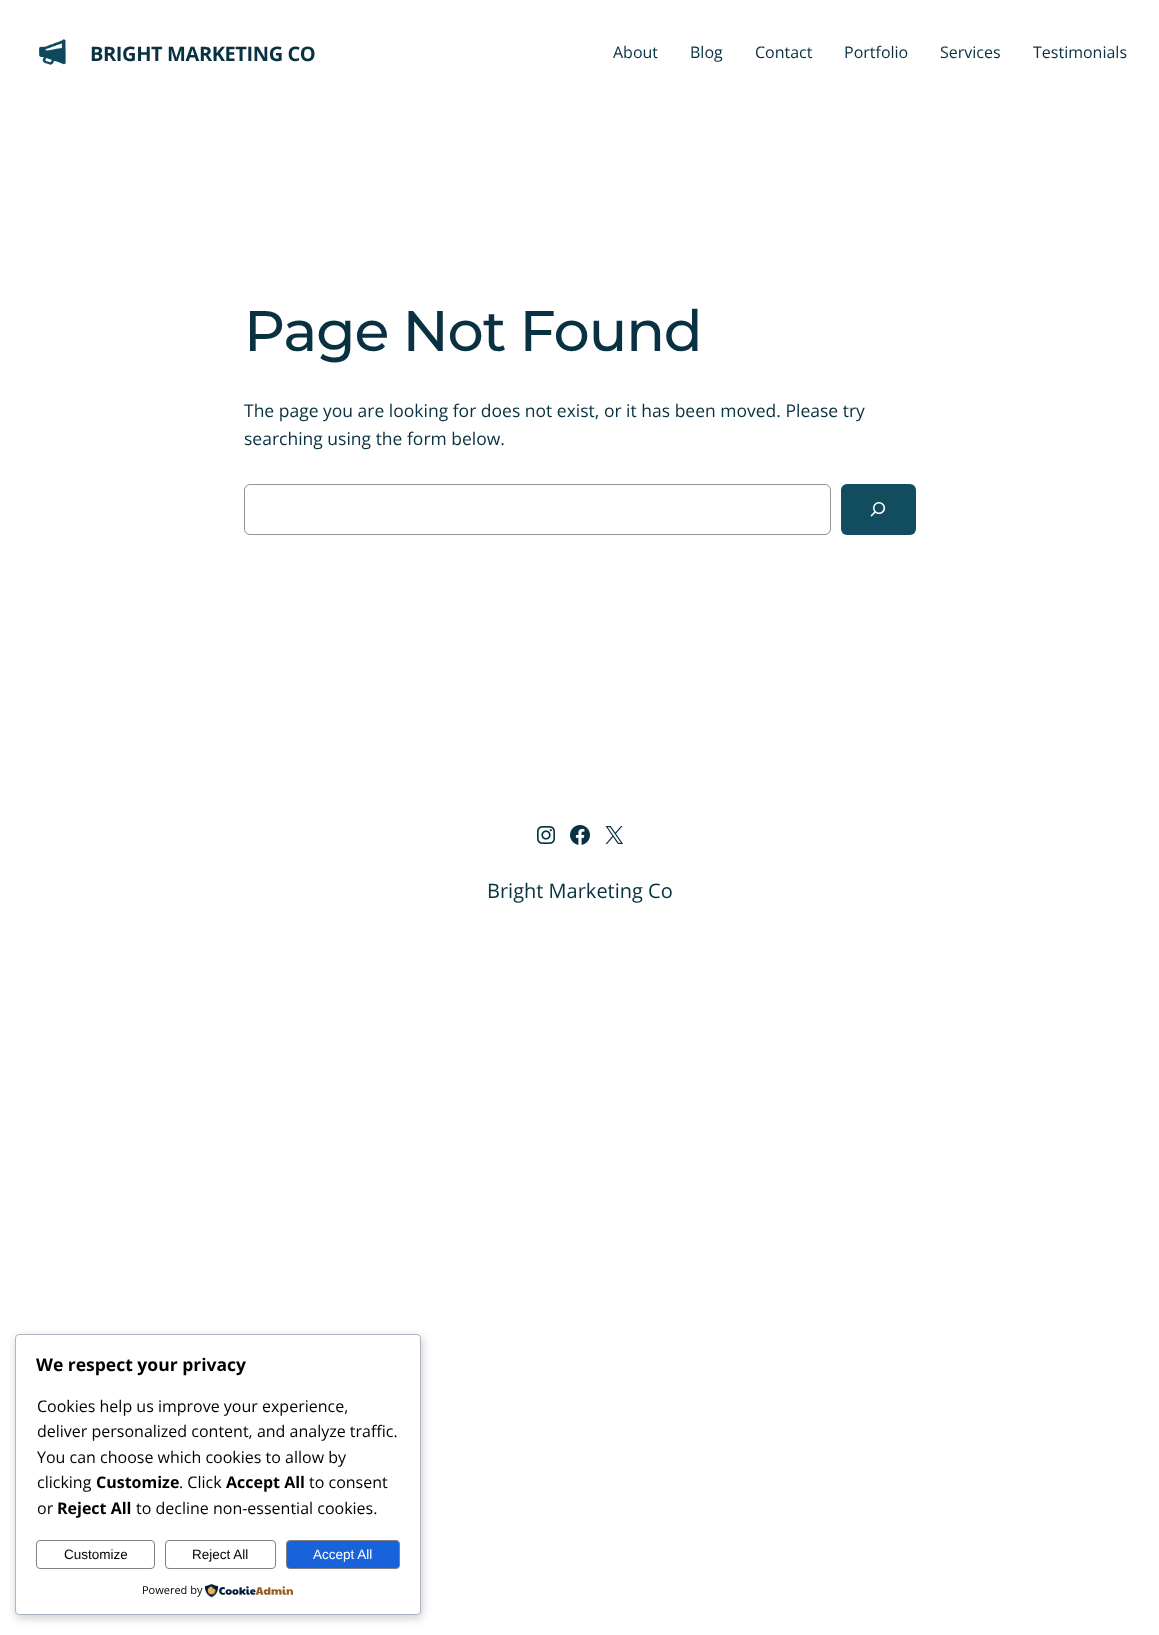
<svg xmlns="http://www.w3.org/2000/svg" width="1159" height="1635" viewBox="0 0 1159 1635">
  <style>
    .t1 { font: bold 20px Open Sans; letter-spacing: -0.4px; fill: #083141; }
    .t2 { font: 16px Open Sans; fill: #083141; }
    .t3 { font: 500 57px Montserrat; letter-spacing: -1.1px; fill: #083141; }
    .t4 { font: 17.5px Open Sans; fill: #083141; }
    .t5 { font: 20px Open Sans; fill: #083141; }
    .t6 { font: bold 17.5px Open Sans; fill: #000; }
    .t7 { font: 16px Open Sans; fill: #000; }
    .t8 { font: bold 16px Open Sans; fill: #000; }
    .t9 { font: 13.5px Liberation Sans; fill: #000; }
    .t10 { font: 13.5px Liberation Sans; fill: #fff; }
    .t11 { font: 11px Open Sans; fill: #000; }
  </style>
  <rect width="100%" height="100%" fill="#fff"/>
  <image x="39" y="39" width="27" height="26" href="images/1.png"/>
  <text x="90" y="61" class="t1">BRIGHT MARKETING CO</text>
  <text x="613" y="58" class="t2">About</text>
  <text x="690" y="58" class="t2">Blog</text>
  <text x="755" y="58" class="t2">Contact</text>
  <text x="844" y="58" class="t2">Portfolio</text>
  <text x="940" y="58" class="t2">Services</text>
  <text x="1033" y="58" class="t2">Testimonials</text>
  <text x="244" y="351" class="t3">Page Not Found</text>
  <text x="244" y="417" class="t4">The page you are looking for does not exist, or it has been moved. Please try</text>
  <text x="244" y="445" class="t4">searching using the form below.</text>
  <rect x="244.5" y="484.5" width="586" height="50" rx="5.5" fill="none" stroke="#949494"/>
  <rect x="841" y="484" width="75" height="51" rx="6" fill="#114c5f"/>
  <image x="870" y="502" width="16" height="15" href="images/2.png"/>
  <image x="537" y="826" width="18" height="18" href="images/3.png"/>
  <image x="570" y="825" width="20" height="20" href="images/4.png"/>
  <image x="605" y="826" width="18" height="18" href="images/5.png"/>
  <text x="487" y="898" class="t5">Bright Marketing Co</text>
  <rect x="16" y="1337" width="406" height="281" rx="4" fill="#00000033" filter="blur(5px)"/>
  <rect x="15.5" y="1334.5" width="405" height="280" rx="3.5" fill="#fff" stroke="#abb8c3"/>
  <text x="36" y="1371" class="t6">We respect your privacy</text>
  <text x="37" y="1412" class="t7">Cookies help us improve your experience,</text>
  <text x="37" y="1437" class="t7">deliver personalized content, and analyze traffic.</text>
  <text x="37" y="1463" class="t7">You can choose which cookies to allow by</text>
  <text x="37" y="1488" class="t7">clicking</text>
  <text x="96" y="1488" class="t8">Customize</text>
  <text x="179" y="1488" class="t7">. Click</text>
  <text x="226" y="1488" class="t8">Accept All</text>
  <text x="309" y="1488" class="t7">to consent</text>
  <text x="37" y="1514" class="t7">or</text>
  <text x="57" y="1514" class="t8">Reject All</text>
  <text x="136" y="1514" class="t7">to decline non-essential cookies.</text>
  <rect x="36.5" y="1540.5" width="118" height="28" rx="3.5" fill="none" stroke="#808080"/>
  <text x="64" y="1559" class="t9">Customize</text>
  <rect x="165.5" y="1540.5" width="110" height="28" rx="3.5" fill="none" stroke="#808080"/>
  <text x="192" y="1559" class="t9">Reject All</text>
  <rect x="286.5" y="1540.5" width="113" height="28" rx="3.5" fill="#1863dc" stroke="#808080"/>
  <text x="313" y="1559" class="t10">Accept All</text>
  <text x="142" y="1594" class="t11">Powered by</text>
  <image x="205" y="1584" width="88" height="14" href="images/6.png"/>
</svg>
